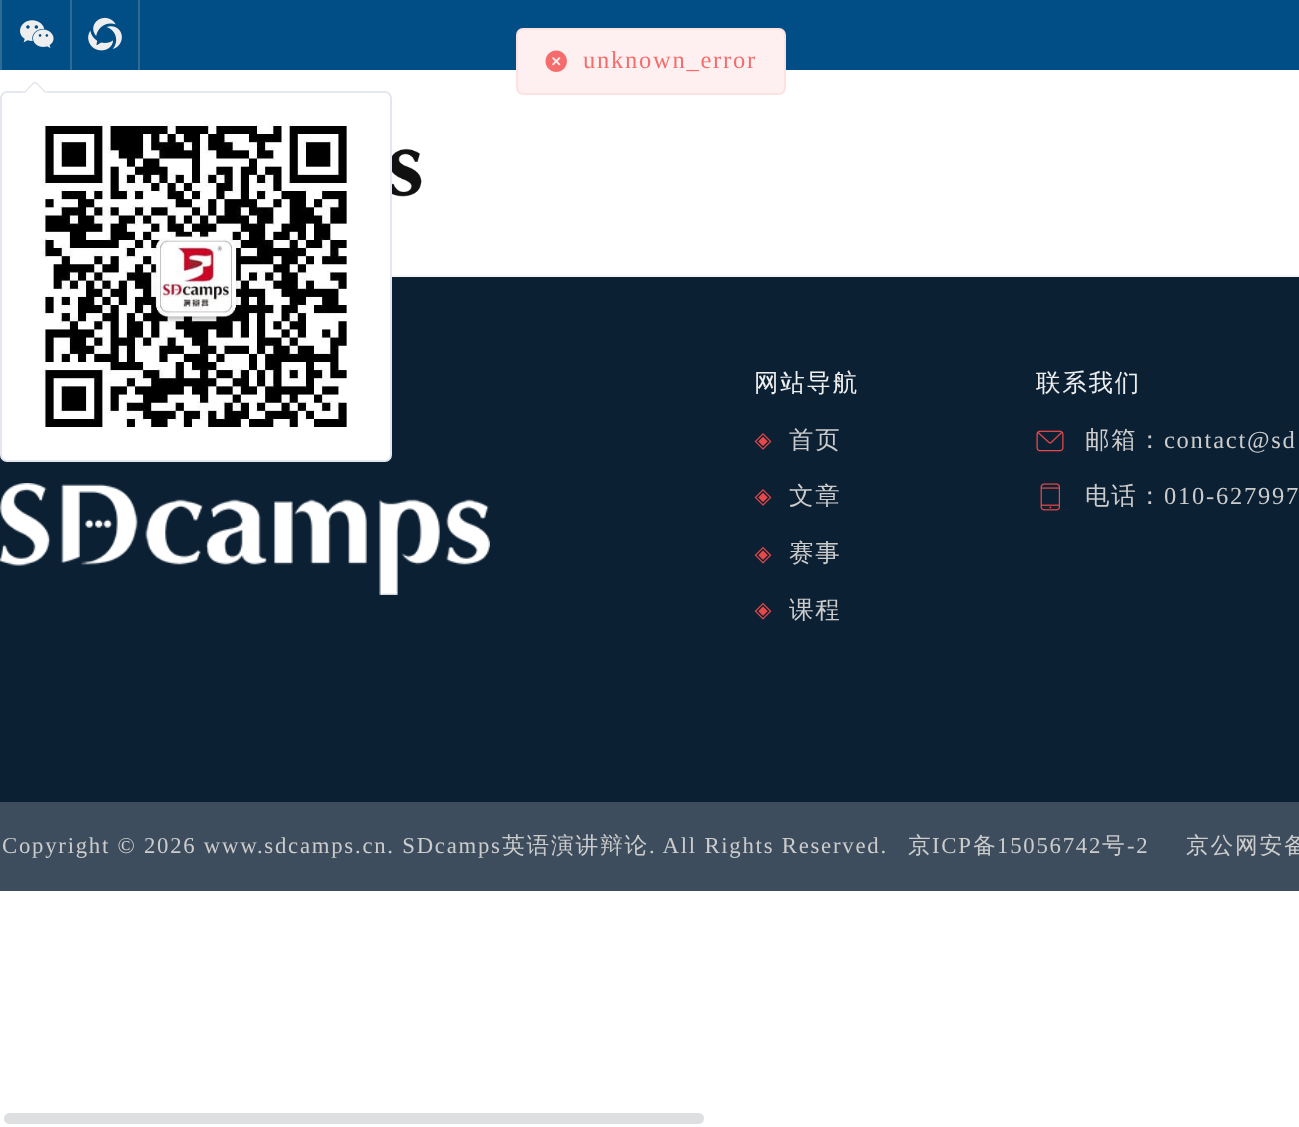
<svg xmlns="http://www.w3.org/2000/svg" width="1299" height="1127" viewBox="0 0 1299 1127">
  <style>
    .t1 { font: 24.5px Liberation Serif; letter-spacing: 1.75px; fill: #f56c6c; }
    .t2 { font: 500 24.5px WenQuanYi Zen Hei; letter-spacing: 1.75px; fill: #eee; }
    .t3 { font: 500 24.5px WenQuanYi Zen Hei; letter-spacing: 1.75px; fill: #ccc; }
    .t4 { font: 24.5px Liberation Serif; letter-spacing: 1.75px; fill: #ccc; }
    .t5 { font: 22.75px Liberation Serif; letter-spacing: 1.75px; fill: #ccc; }
    .t6 { font: 500 22.75px WenQuanYi Zen Hei; letter-spacing: 1.75px; fill: #ccc; }
  </style>
  <rect width="100%" height="100%" fill="#fff"/>
  <rect x="2" y="0" width="1297" height="70" fill="#004e85"/>
  <rect x="517" y="29" width="268" height="65" rx="6" fill="#fef0f0" stroke="#fde2e2" stroke-width="2"/>
  <image x="545" y="50" width="22" height="22" href="images/1.png"/>
  <text x="583" y="68" class="t1">unknown_error</text>
  <rect x="0" y="277" width="1299" height="525" fill="#0c2034"/>
  <rect x="1" y="92" width="390" height="369" rx="6" fill="#fff" stroke="#e4e7ed" stroke-width="2"/>
  <path d="M37.5 83L47.5 93L35 105L22.5 93L32.5 83C34 81.5 36 81.5 37.5 83Z" fill="#fff"/>
  <path d="M37.5 83C37 82 36 82 35 82V83.5C36.5 83.5 43.5 91.5 45 93H47ZM35 82C34 82 33 82 32.5 83L23 93H25C26.5 91.5 33.5 83.5 35 83.5Z" fill="#e4e7ed"/>
  <image x="40" y="121" width="307" height="306" href="images/2.png"/>
  <rect x="0" y="0" width="2" height="70" fill="#306b95"/>
  <image x="20" y="20" width="34" height="28" href="images/3.png"/>
  <rect x="138" y="0" width="2" height="70" fill="#306b95"/>
  <rect x="70" y="0" width="2" height="70" fill="#306b95"/>
  <image x="88" y="17" width="34" height="34" href="images/4.png"/>
  <rect x="392" y="275" width="907" height="2" fill="#f5f5f5"/>
  <image x="392" y="148" width="30" height="49" href="images/5.png"/>
  <text x="754" y="391" class="t2">网站导航</text>
  <image x="754" y="433" width="18" height="17" href="images/6.png"/>
  <text x="789" y="448" class="t3">首页</text>
  <image x="754" y="489" width="18" height="17" href="images/6.png"/>
  <text x="789" y="504" class="t3">文章</text>
  <image x="754" y="546" width="18" height="18" href="images/7.png"/>
  <text x="789" y="561" class="t3">赛事</text>
  <image x="754" y="602" width="18" height="18" href="images/7.png"/>
  <text x="789" y="618" class="t3">课程</text>
  <text x="1036" y="391" class="t2">联系我们</text>
  <image x="1036" y="430" width="28" height="22" href="images/8.png"/>
  <text x="1085" y="448" class="t3">邮箱：</text>
  <text x="1164" y="448" class="t4">contact@sd</text>
  <image x="1040" y="483" width="20" height="28" href="images/9.png"/>
  <text x="1085" y="504" class="t3">电话：</text>
  <text x="1164" y="504" class="t4">010-627997</text>
  <image x="0" y="483" width="490" height="112" href="images/10.png"/>
  <rect x="0" y="802" width="1299" height="89" fill="#3d4d5d"/>
  <text x="2" y="853" class="t5">Copyright © 2026 www.sdcamps.cn. SDcamps</text>
  <text x="502" y="853" class="t6">英语演讲辩论</text>
  <text x="649" y="853" class="t5">. All Rights Reserved.</text>
  <text x="908" y="853" class="t6">京</text>
  <text x="932" y="853" class="t5">ICP</text>
  <text x="973" y="853" class="t6">备</text>
  <text x="997" y="853" class="t5">15056742</text>
  <text x="1102" y="853" class="t6">号</text>
  <text x="1127" y="853" class="t5">-2</text>
  <text x="1186" y="853" class="t6">京公网安备</text>
  <rect x="4" y="1113" width="700" height="11" rx="5.5" fill="#dedfe0"/>
</svg>
